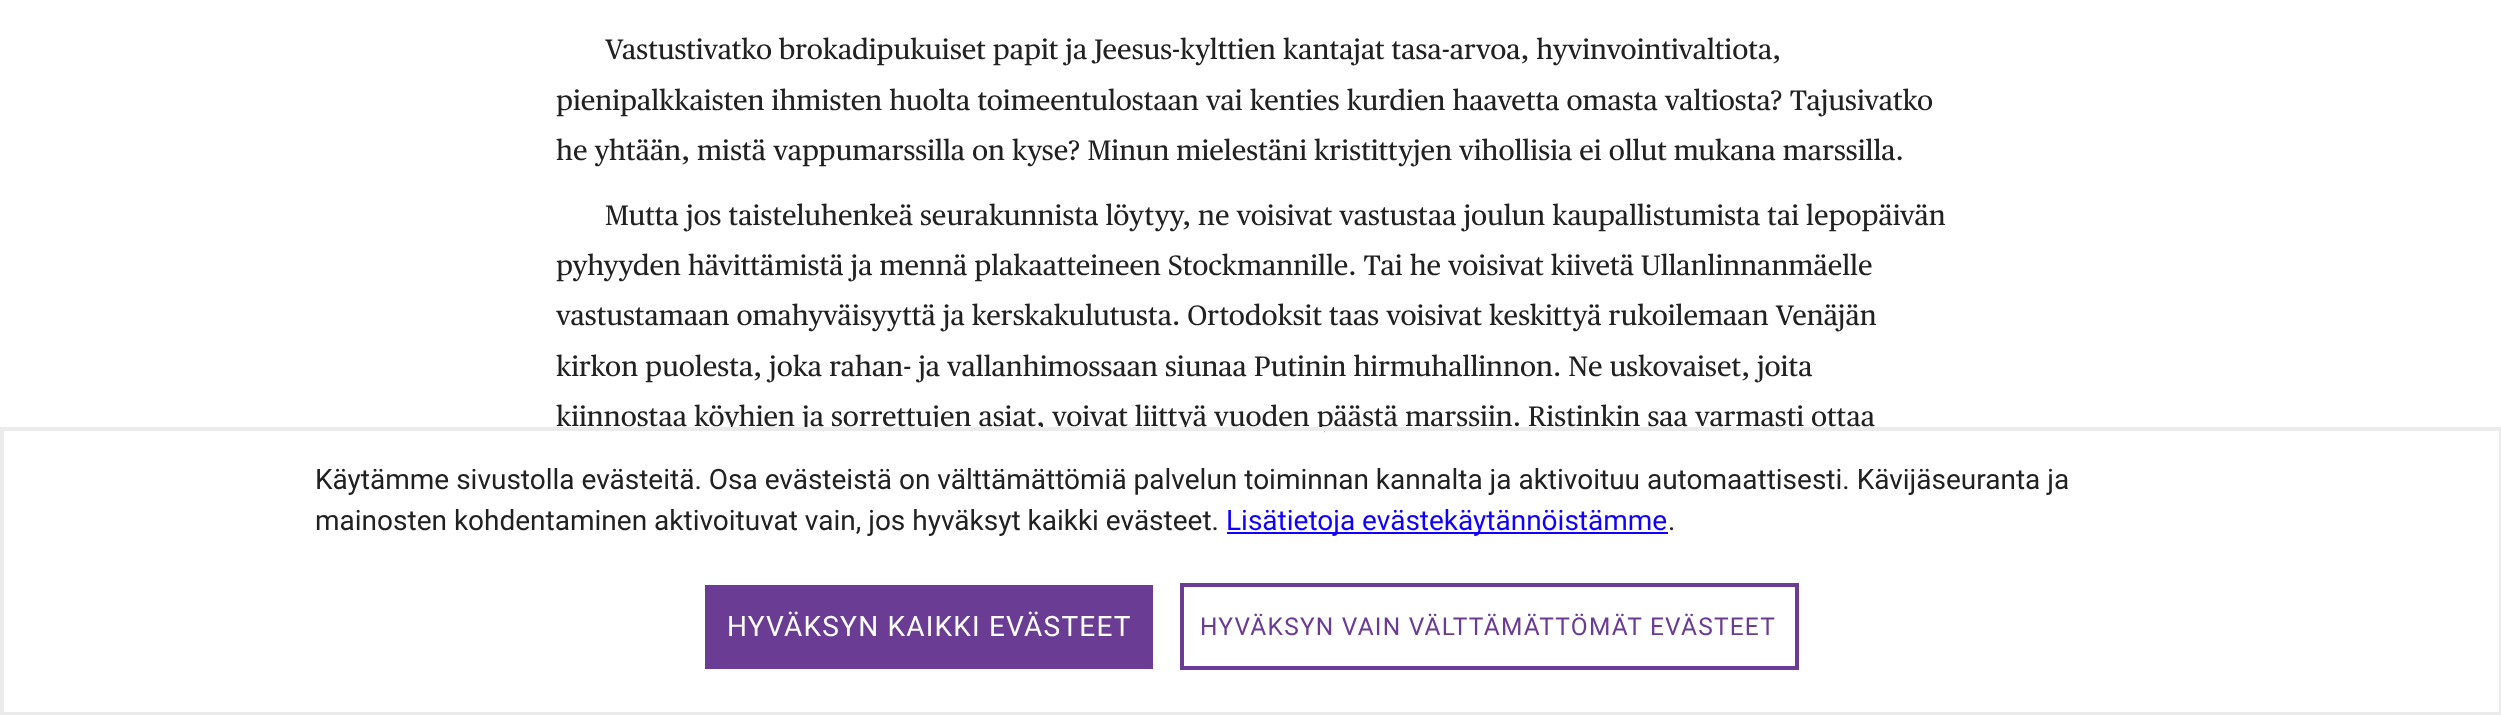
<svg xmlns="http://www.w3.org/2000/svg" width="2501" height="715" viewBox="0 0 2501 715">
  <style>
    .t1 { font: 28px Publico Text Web; fill: #212121; }
    .t2 { font: 28px Roboto; fill: #212121; }
    .t3 { font: 28px Roboto; fill: #1000ff; }
    .t4 { font: 28px Roboto; letter-spacing: 1.2px; fill: #fff; }
    .t5 { font: 24.5px Roboto; letter-spacing: 1.2px; fill: #6b3c94; }
  </style>
  <rect width="100%" height="100%" fill="#fff"/>
  <text x="605" y="59" class="t1">Vastustivatko brokadipukuiset papit ja Jeesus-kylttien kantajat tasa-arvoa, hyvinvointivaltiota,</text>
  <text x="556" y="110" class="t1">pienipalkkaisten ihmisten huolta toimeentulostaan vai kenties kurdien haavetta omasta valtiosta? Tajusivatko</text>
  <text x="556" y="160" class="t1">he yhtään, mistä vappumarssilla on kyse? Minun mielestäni kristittyjen vihollisia ei ollut mukana marssilla.</text>
  <text x="605" y="225" class="t1">Mutta jos taisteluhenkeä seurakunnista löytyy, ne voisivat vastustaa joulun kaupallistumista tai lepopäivän</text>
  <text x="556" y="275" class="t1">pyhyyden hävittämistä ja mennä plakaatteineen Stockmannille. Tai he voisivat kiivetä Ullanlinnanmäelle</text>
  <text x="556" y="325" class="t1">vastustamaan omahyväisyyttä ja kerskakulutusta. Ortodoksit taas voisivat keskittyä rukoilemaan Venäjän</text>
  <text x="556" y="376" class="t1">kirkon puolesta, joka rahan- ja vallanhimossaan siunaa Putinin hirmuhallinnon. Ne uskovaiset, joita</text>
  <text x="556" y="426" class="t1">kiinnostaa köyhien ja sorrettujen asiat, voivat liittyä vuoden päästä marssiin. Ristinkin saa varmasti ottaa</text>
  <rect x="724" y="431" width="600" height="2" fill="#fff"/>
  <rect x="2" y="429" width="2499" height="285" fill="none" stroke="#ebebeb" stroke-width="4"/>
  <text x="315" y="489" class="t2">Käytämme sivustolla evästeitä. Osa evästeistä on välttämättömiä palvelun toiminnan kannalta ja aktivoituu automaattisesti. Kävijäseuranta ja</text>
  <text x="315" y="530" class="t2">mainosten kohdentaminen aktivoituvat vain, jos hyväksyt kaikki evästeet.</text>
  <rect x="1227" y="532" width="441" height="2" fill="#1000ff"/>
  <text x="1226" y="530" class="t3">Lisätietoja evästekäytännöistämme</text>
  <text x="1668" y="530" class="t2">.</text>
  <rect x="705" y="585" width="448" height="84" fill="#6b3c94"/>
  <text x="727" y="636" class="t4">HYVÄKSYN KAIKKI EVÄSTEET</text>
  <rect x="1182" y="585" width="615" height="83" fill="none" stroke="#6b3c94" stroke-width="4"/>
  <text x="1200" y="635" class="t5">HYVÄKSYN VAIN VÄLTTÄMÄTTÖMÄT EVÄSTEET</text>
</svg>
